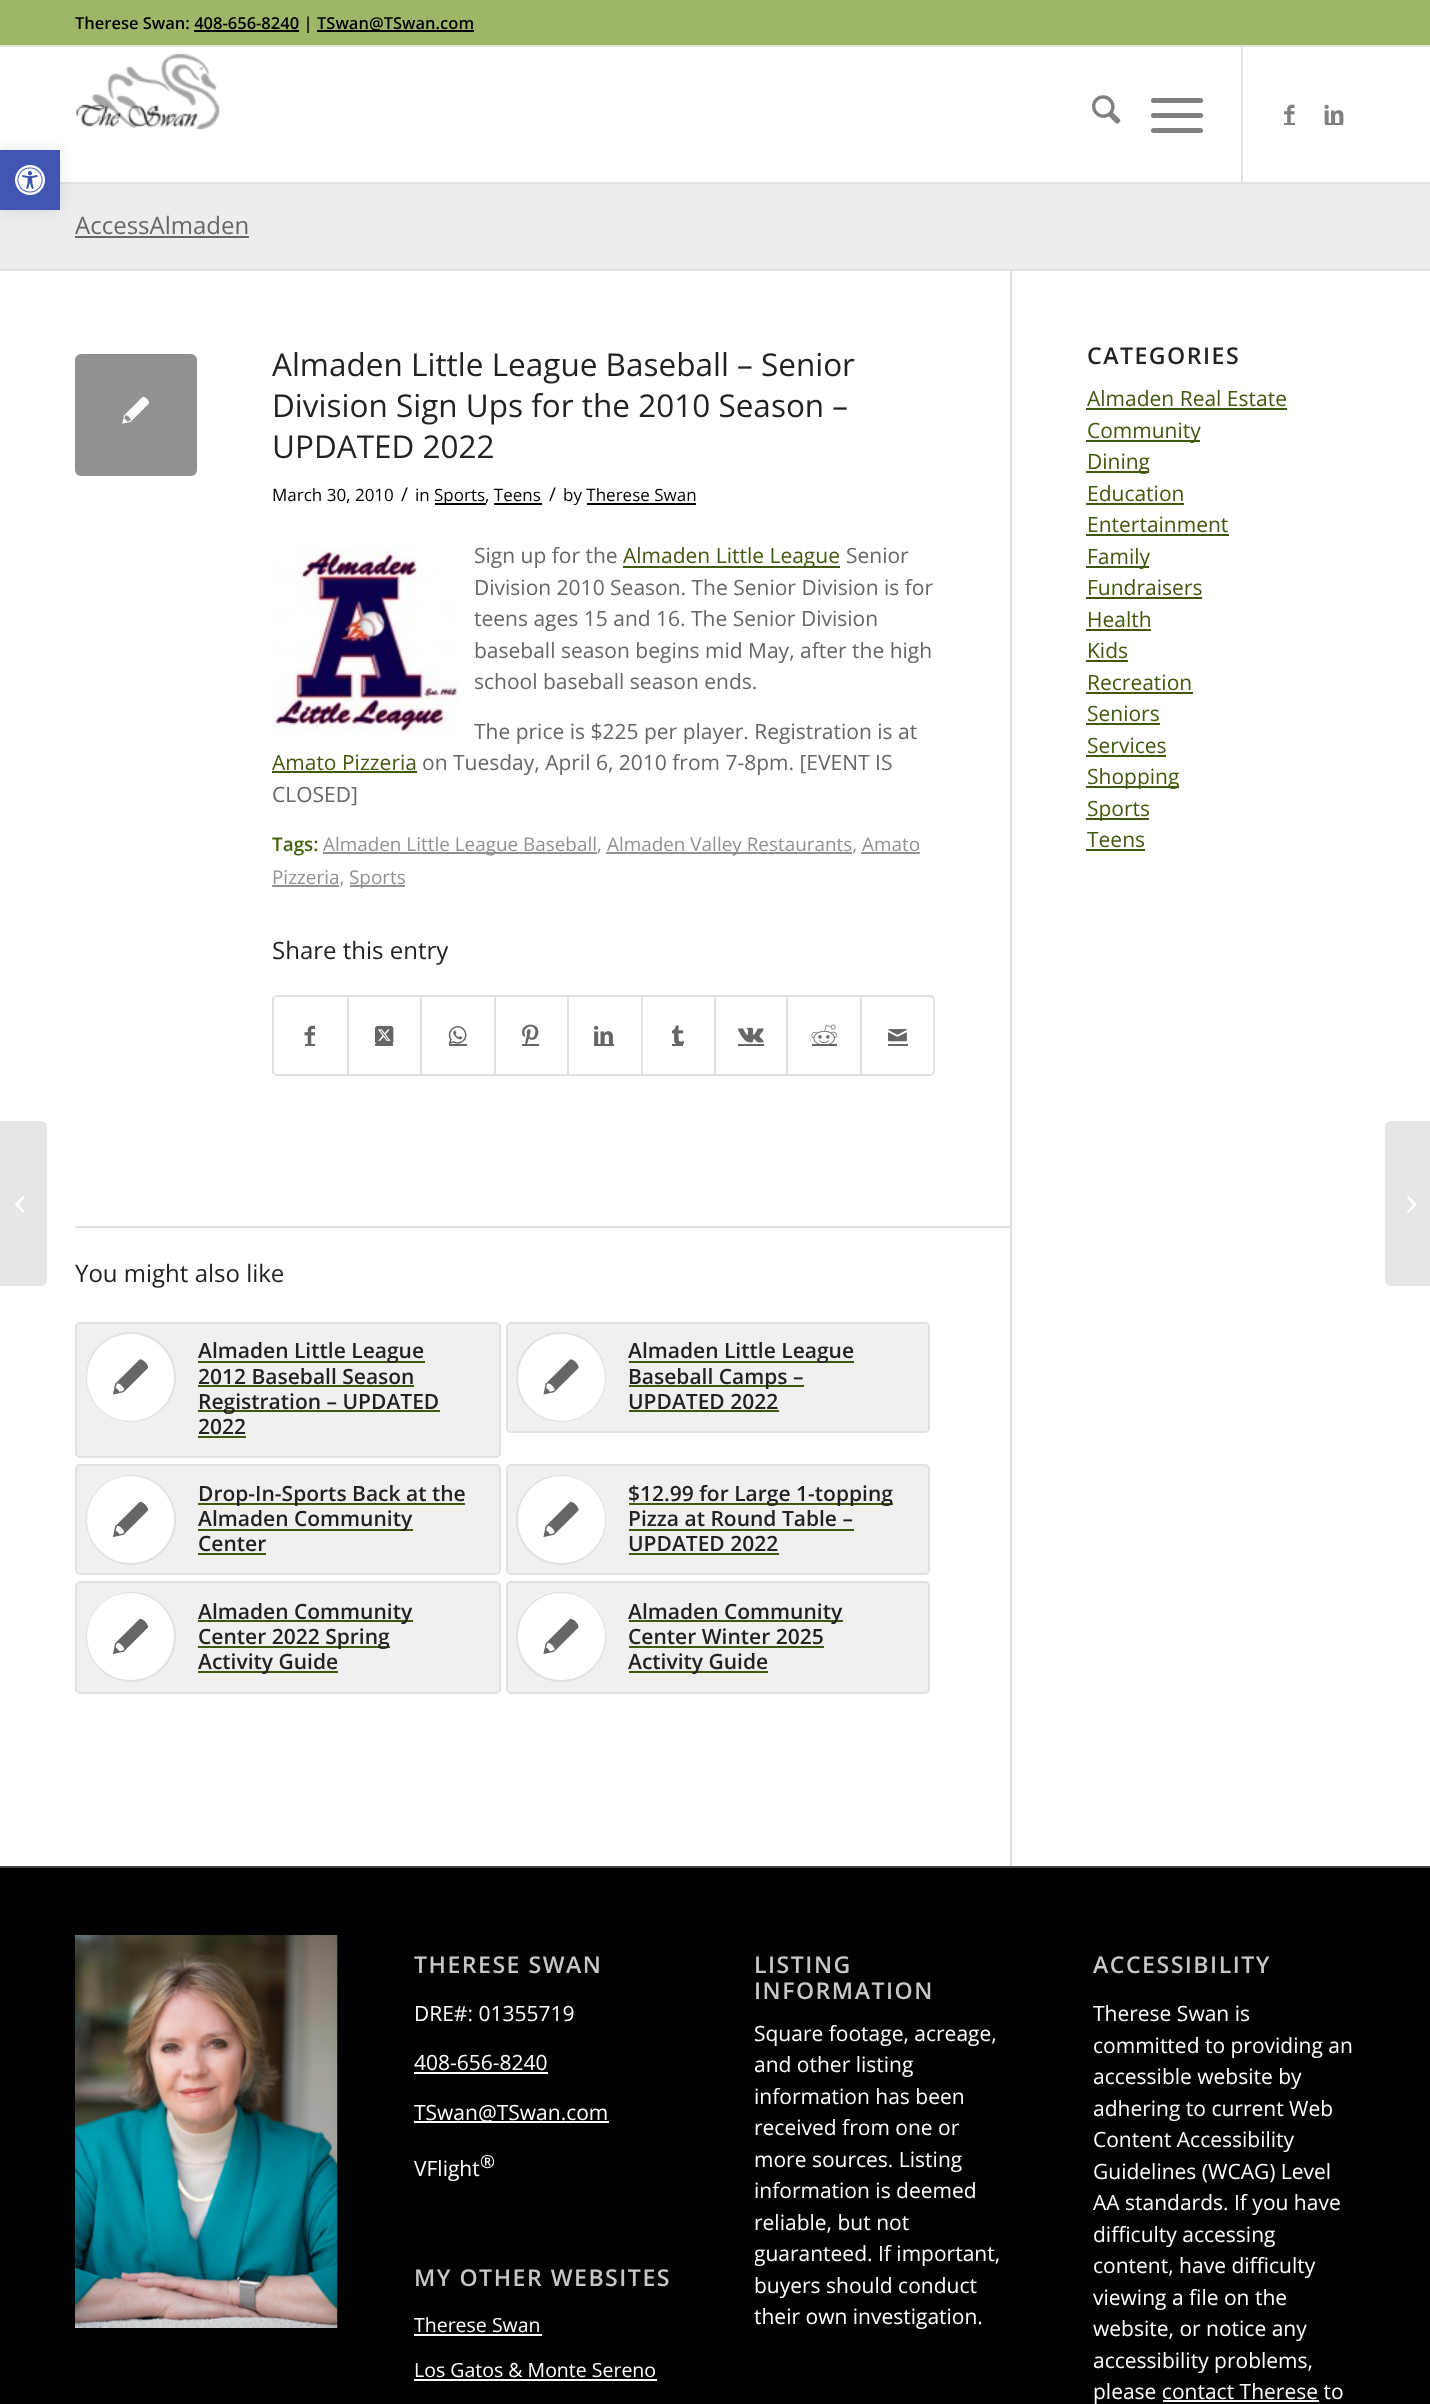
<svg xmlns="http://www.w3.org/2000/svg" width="1430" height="2404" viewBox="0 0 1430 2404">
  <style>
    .t1 { font: 600 16.5px Open Sans; fill: #000; }
    .t2 { font: 24px Open Sans; fill: #666; }
    .t3 { font: 31.5px Open Sans; fill: #222; }
    .t4 { font: 17px Open Sans; fill: #000; }
    .t5 { font: 18.9px Open Sans; fill: #000; }
    .t6 { font: 21px Open Sans; fill: #666; }
    .t7 { font: 21px Open Sans; fill: #3f590e; }
    .t8 { font: 600 18.9px Open Sans; fill: #45630d; }
    .t9 { font: 18.9px Open Sans; fill: #919191; }
    .t10 { font: 24px Open Sans; fill: #222; }
    .t11 { font: 600 21px Open Sans; fill: #222; }
    .t12 { font: 600 23.1px Open Sans; letter-spacing: 1.5px; fill: #222; }
    .t13 { font: 600 23.1px Open Sans; letter-spacing: 1.5px; fill: #c5c7c9; }
    .t14 { font: 21px Open Sans; fill: #fff; }
    .t15 { font: 18px Open Sans; fill: #fff; }
    .t16 { font: 19.5px Open Sans; fill: #fff; }
  </style>
  <defs>
    <clipPath id="clip1"><rect x="272" y="345" width="738" height="881"/></clipPath>
    <clipPath id="clip2"><rect x="755" y="1935" width="262" height="396"/></clipPath>
  </defs>
  <rect width="100%" height="100%" fill="#fff"/>
  <rect x="60" y="182" width="1370" height="2" fill="#e1e1e1"/>
  <image x="76" y="53" width="144" height="77" href="images/2.png"/>
  <rect x="0" y="184" width="1430" height="85" fill="#ededed"/>
  <rect x="0" y="150" width="60" height="60" fill="#0000001a" filter="blur(7.5px)"/>
  <rect x="0" y="150" width="60" height="60" fill="#4054b2"/>
  <image x="15" y="165" width="30" height="30" href="images/1.png"/>
  <rect x="0" y="0" width="1430" height="45" fill="#9db668"/>
  <rect x="0" y="45" width="1430" height="2" fill="#e1e1e1"/>
  <text x="75" y="29" class="t1">Therese Swan: 408-656-8240 |</text>
  <rect x="317" y="30" width="157" height="2" fill="#000"/>
  <text x="317" y="29" class="t1">TSwan@TSwan.com</text>
  <rect x="194" y="30" width="105" height="2" fill="#000"/>
  <rect x="1241" y="47" width="2" height="135" fill="#e1e1e1"/>
  <image x="1092" y="95" width="29" height="29" href="images/3.png"/>
  <rect x="1151" y="113" width="52" height="5" rx="2.5" fill="#808080"/>
  <rect x="1151" y="98" width="52" height="5" rx="2.5" fill="#808080"/>
  <rect x="1151" y="128" width="52" height="5" rx="2.5" fill="#808080"/>
  <image x="1284" y="104" width="11" height="19" href="images/4.png"/>
  <rect x="1284" y="123" width="11" height="2" fill="#808080"/>
  <rect x="1325" y="123" width="18" height="2" fill="#808080"/>
  <image x="1324" y="104" width="20" height="20" href="images/5.png"/>
  <path d="M0 1121H41C44.5 1121 47 1123.5 47 1127V1280C47 1283.5 44.5 1286 41 1286H0Z" fill="#e6e6e6"/>
  <image x="15" y="1196" width="9" height="17" href="images/6.png"/>
  <text x="75" y="234" class="t2">AccessAlmaden</text>
  <rect x="75" y="236" width="174" height="2" fill="#666"/>
  <rect x="0" y="269" width="1430" height="2" fill="#e1e1e1"/>
  <rect x="1010" y="270" width="2" height="1596" fill="#e1e1e1"/>
  <rect x="75" y="354" width="122" height="122" rx="6" fill="#919191"/>
  <image x="122" y="396" width="28" height="28" href="images/7.png"/>
  <text x="272" y="376" class="t3">Almaden Little League Baseball – Senior</text>
  <text x="272" y="417" class="t3">Division Sign Ups for the 2010 Season –</text>
  <text x="272" y="458" class="t3">UPDATED 2022</text>
  <text x="272" y="501" class="t4">March 30, 2010</text>
  <text x="401" y="501" class="t5">/</text>
  <text x="415" y="501" class="t4">in</text>
  <rect x="435" y="503" width="51" height="2" fill="#000"/>
  <text x="434" y="501" class="t4">Sports, Teens</text>
  <rect x="494" y="503" width="48" height="2" fill="#000"/>
  <text x="549" y="501" class="t5">/</text>
  <text x="563" y="501" class="t4">by Therese Swan</text>
  <rect x="587" y="503" width="109" height="2" fill="#000"/>
  <image x="272" y="546" width="187" height="188" href="images/8.png"/>
  <text x="474" y="563" class="t6">Sign up for the</text>
  <rect x="623" y="566" width="217" height="2" fill="#3f590e"/>
  <text x="623" y="563" class="t7">Almaden Little League</text>
  <text x="846" y="563" class="t6">Senior</text>
  <text x="474" y="595" class="t6">Division 2010 Season. The Senior Division is for</text>
  <text x="474" y="626" class="t6">teens ages 15 and 16. The Senior Division</text>
  <text x="474" y="658" class="t6">baseball season begins mid May, after the high</text>
  <text x="474" y="689" class="t6">school baseball season ends.</text>
  <text x="474" y="739" class="t6">The price is $225 per player. Registration is at</text>
  <text x="272" y="770" class="t7">Amato Pizzeria</text>
  <rect x="272" y="771" width="145" height="2" fill="#3f590e"/>
  <text x="422" y="770" class="t6">on Tuesday, April 6, 2010 from 7-8pm. [EVENT IS</text>
  <text x="272" y="802" class="t6">CLOSED]</text>
  <g clip-path="url(#clip1)">
    <text x="272" y="851" class="t8">Tags:</text>
  </g>
  <rect x="323" y="852" width="274" height="2" fill="#919191"/>
  <text x="323" y="851" class="t9">Almaden Little League Baseball,</text>
  <rect x="606" y="852" width="246" height="2" fill="#919191"/>
  <text x="607" y="851" class="t9">Almaden Valley Restaurants, Amato</text>
  <rect x="861" y="852" width="59" height="2" fill="#919191"/>
  <rect x="272" y="885" width="67" height="2" fill="#919191"/>
  <text x="272" y="884" class="t9">Pizzeria,</text>
  <rect x="350" y="885" width="55" height="2" fill="#919191"/>
  <text x="349" y="884" class="t9">Sports</text>
  <text x="272" y="959" class="t10">Share this entry</text>
  <rect x="273" y="996" width="661" height="79" rx="4" fill="none" stroke="#e1e1e1" stroke-width="2"/>
  <image x="304" y="1025" width="11" height="19" href="images/9.png"/>
  <rect x="305" y="1044" width="10" height="2" fill="#666"/>
  <rect x="347" y="996" width="2" height="78" fill="#e1e1e1"/>
  <image x="375" y="1025" width="19" height="19" href="images/10.png"/>
  <rect x="375" y="1044" width="18" height="2" fill="#666"/>
  <rect x="420" y="996" width="2" height="78" fill="#e1e1e1"/>
  <rect x="449" y="1044" width="18" height="2" fill="#666"/>
  <image x="448" y="1026" width="19" height="19" href="images/11.png"/>
  <rect x="494" y="996" width="2" height="78" fill="#e1e1e1"/>
  <image x="522" y="1024" width="17" height="20" href="images/12.png"/>
  <rect x="522" y="1044" width="17" height="2" fill="#666"/>
  <rect x="567" y="996" width="2" height="78" fill="#e1e1e1"/>
  <image x="594" y="1025" width="19" height="19" href="images/13.png"/>
  <rect x="594" y="1044" width="20" height="2" fill="#666"/>
  <rect x="641" y="996" width="2" height="78" fill="#e1e1e1"/>
  <image x="672" y="1025" width="12" height="19" href="images/14.png"/>
  <rect x="672" y="1044" width="11" height="2" fill="#666"/>
  <rect x="714" y="996" width="2" height="78" fill="#e1e1e1"/>
  <image x="738" y="1027" width="26" height="16" href="images/15.png"/>
  <rect x="738" y="1044" width="26" height="2" fill="#666"/>
  <rect x="786" y="996" width="2" height="78" fill="#e1e1e1"/>
  <image x="811" y="1024" width="26" height="20" href="images/16.png"/>
  <rect x="812" y="1044" width="25" height="2" fill="#666"/>
  <rect x="860" y="996" width="2" height="78" fill="#e1e1e1"/>
  <image x="888" y="1029" width="19" height="13" href="images/17.png"/>
  <rect x="888" y="1044" width="20" height="2" fill="#666"/>
  <rect x="75" y="1226" width="935" height="2" fill="#e1e1e1"/>
  <text x="75" y="1282" class="t10">You might also like</text>
  <rect x="76" y="1323" width="424" height="134" rx="4" fill="#f0f0f0" stroke="#e1e1e1" stroke-width="2"/>
  <circle cx="131" cy="1377" r="44" fill="none" stroke="#e1e1e1" stroke-width="2"/>
  <circle cx="130.5" cy="1377.5" r="43.5" fill="#fff"/>
  <image x="113" y="1359" width="35" height="36" href="images/18.png"/>
  <rect x="198" y="1361" width="227" height="2" fill="#3f590e"/>
  <text x="198" y="1358" class="t11">Almaden Little League</text>
  <text x="198" y="1384" class="t11">2012 Baseball Season</text>
  <rect x="198" y="1385" width="216" height="2" fill="#3f590e"/>
  <rect x="198" y="1410" width="242" height="2" fill="#3f590e"/>
  <text x="198" y="1409" class="t11">Registration – UPDATED</text>
  <text x="198" y="1434" class="t11">2022</text>
  <rect x="198" y="1436" width="48" height="2" fill="#3f590e"/>
  <rect x="507" y="1323" width="422" height="109" rx="4" fill="#f0f0f0" stroke="#e1e1e1" stroke-width="2"/>
  <circle cx="561" cy="1377" r="44" fill="none" stroke="#e1e1e1" stroke-width="2"/>
  <circle cx="561.5" cy="1377.5" r="43.5" fill="#fff"/>
  <image x="543" y="1359" width="36" height="36" href="images/19.png"/>
  <rect x="629" y="1361" width="225" height="2" fill="#3f590e"/>
  <text x="628" y="1358" class="t11">Almaden Little League</text>
  <rect x="629" y="1385" width="175" height="2" fill="#3f590e"/>
  <text x="628" y="1384" class="t11">Baseball Camps –</text>
  <text x="628" y="1409" class="t11">UPDATED 2022</text>
  <rect x="629" y="1410" width="150" height="2" fill="#3f590e"/>
  <rect x="76" y="1465" width="424" height="109" rx="4" fill="#f0f0f0" stroke="#e1e1e1" stroke-width="2"/>
  <circle cx="131" cy="1520" r="44" fill="none" stroke="#e1e1e1" stroke-width="2"/>
  <circle cx="130.5" cy="1519.5" r="43.5" fill="#fff"/>
  <image x="113" y="1501" width="35" height="36" href="images/20.png"/>
  <rect x="198" y="1503" width="267" height="2" fill="#3f590e"/>
  <text x="198" y="1501" class="t11">Drop-In-Sports Back at the</text>
  <rect x="198" y="1529" width="215" height="2" fill="#3f590e"/>
  <text x="198" y="1526" class="t11">Almaden Community</text>
  <text x="198" y="1551" class="t11">Center</text>
  <rect x="198" y="1553" width="68" height="2" fill="#3f590e"/>
  <rect x="507" y="1465" width="422" height="109" rx="4" fill="#f0f0f0" stroke="#e1e1e1" stroke-width="2"/>
  <circle cx="561" cy="1520" r="44" fill="none" stroke="#e1e1e1" stroke-width="2"/>
  <circle cx="561.5" cy="1519.5" r="43.5" fill="#fff"/>
  <image x="543" y="1501" width="36" height="36" href="images/21.png"/>
  <rect x="629" y="1503" width="264" height="2" fill="#3f590e"/>
  <text x="628" y="1501" class="t11">$12.99 for Large 1-topping</text>
  <text x="628" y="1526" class="t11">Pizza at Round Table –</text>
  <rect x="629" y="1529" width="225" height="2" fill="#3f590e"/>
  <text x="628" y="1551" class="t11">UPDATED 2022</text>
  <rect x="629" y="1553" width="150" height="2" fill="#3f590e"/>
  <rect x="76" y="1582" width="424" height="111" rx="4" fill="#f0f0f0" stroke="#e1e1e1" stroke-width="2"/>
  <circle cx="131" cy="1637" r="44" fill="none" stroke="#e1e1e1" stroke-width="2"/>
  <circle cx="130.5" cy="1636.5" r="43.5" fill="#fff"/>
  <image x="113" y="1618" width="35" height="36" href="images/20.png"/>
  <rect x="198" y="1620" width="215" height="2" fill="#3f590e"/>
  <text x="198" y="1619" class="t11">Almaden Community</text>
  <rect x="198" y="1646" width="192" height="2" fill="#3f590e"/>
  <text x="198" y="1644" class="t11">Center 2022 Spring</text>
  <rect x="198" y="1671" width="140" height="2" fill="#3f590e"/>
  <text x="198" y="1669" class="t11">Activity Guide</text>
  <rect x="507" y="1582" width="422" height="111" rx="4" fill="#f0f0f0" stroke="#e1e1e1" stroke-width="2"/>
  <circle cx="561" cy="1637" r="44" fill="none" stroke="#e1e1e1" stroke-width="2"/>
  <circle cx="561.5" cy="1636.5" r="43.5" fill="#fff"/>
  <image x="543" y="1618" width="36" height="36" href="images/21.png"/>
  <rect x="629" y="1620" width="214" height="2" fill="#3f590e"/>
  <text x="628" y="1619" class="t11">Almaden Community</text>
  <text x="628" y="1644" class="t11">Center Winter 2025</text>
  <rect x="629" y="1646" width="195" height="2" fill="#3f590e"/>
  <rect x="629" y="1671" width="139" height="2" fill="#3f590e"/>
  <text x="628" y="1669" class="t11">Activity Guide</text>
  <text x="1087" y="364" class="t12">CATEGORIES</text>
  <text x="1087" y="406" class="t7">Almaden Real Estate</text>
  <rect x="1086" y="408" width="201" height="2" fill="#3f590e"/>
  <rect x="1086" y="440" width="114" height="2" fill="#3f590e"/>
  <text x="1087" y="438" class="t7">Community</text>
  <rect x="1086" y="471" width="63" height="2" fill="#3f590e"/>
  <text x="1087" y="469" class="t7">Dining</text>
  <text x="1087" y="501" class="t7">Education</text>
  <rect x="1086" y="503" width="98" height="2" fill="#3f590e"/>
  <text x="1087" y="532" class="t7">Entertainment</text>
  <rect x="1086" y="534" width="143" height="2" fill="#3f590e"/>
  <rect x="1086" y="566" width="63" height="2" fill="#3f590e"/>
  <text x="1087" y="564" class="t7">Family</text>
  <text x="1087" y="595" class="t7">Fundraisers</text>
  <rect x="1086" y="597" width="116" height="2" fill="#3f590e"/>
  <text x="1087" y="627" class="t7">Health</text>
  <rect x="1086" y="629" width="65" height="2" fill="#3f590e"/>
  <text x="1087" y="658" class="t7">Kids</text>
  <rect x="1086" y="660" width="42" height="2" fill="#3f590e"/>
  <text x="1087" y="690" class="t7">Recreation</text>
  <rect x="1086" y="692" width="107" height="2" fill="#3f590e"/>
  <text x="1087" y="721" class="t7">Seniors</text>
  <rect x="1086" y="723" width="74" height="2" fill="#3f590e"/>
  <text x="1087" y="753" class="t7">Services</text>
  <rect x="1086" y="755" width="80" height="2" fill="#3f590e"/>
  <rect x="1086" y="786" width="93" height="2" fill="#3f590e"/>
  <text x="1087" y="784" class="t7">Shopping</text>
  <rect x="1086" y="818" width="63" height="2" fill="#3f590e"/>
  <text x="1087" y="816" class="t7">Sports</text>
  <text x="1087" y="847" class="t7">Teens</text>
  <rect x="1086" y="849" width="59" height="2" fill="#3f590e"/>
  <rect x="0" y="1868" width="1430" height="536" fill="#000"/>
  <rect x="0" y="1866" width="1430" height="2" fill="#444"/>
  <image x="75" y="1935" width="263" height="393" href="images/22.png"/>
  <text x="414" y="1973" class="t13">THERESE SWAN</text>
  <text x="414" y="2021" class="t14">DRE#: 01355719</text>
  <text x="414" y="2070" class="t14">408-656-8240</text>
  <rect x="414" y="2072" width="134" height="2" fill="#fff"/>
  <rect x="414" y="2121" width="195" height="2" fill="#fff"/>
  <text x="414" y="2120" class="t14">TSwan@TSwan.com</text>
  <text x="414" y="2176" class="t14">VFlight</text>
  <text x="480" y="2168" class="t15">®</text>
  <text x="414" y="2286" class="t13">MY OTHER WEBSITES</text>
  <text x="414" y="2332" class="t16">Therese Swan</text>
  <rect x="414" y="2334" width="128" height="2" fill="#fff"/>
  <text x="414" y="2377" class="t16">Los Gatos &amp; Monte Sereno</text>
  <rect x="414" y="2379" width="243" height="2" fill="#fff"/>
  <text x="754" y="1973" class="t13">LISTING</text>
  <text x="754" y="1999" class="t13">INFORMATION</text>
  <text x="754" y="2041" class="t14">Square footage, acreage,</text>
  <text x="754" y="2072" class="t14">and other listing</text>
  <text x="754" y="2104" class="t14">information has been</text>
  <text x="754" y="2135" class="t14">received from one or</text>
  <text x="754" y="2167" class="t14">more sources. Listing</text>
  <text x="754" y="2198" class="t14">information is deemed</text>
  <text x="754" y="2230" class="t14">reliable, but not</text>
  <g clip-path="url(#clip2)">
    <text x="754" y="2261" class="t14">guaranteed. If important,</text>
  </g>
  <text x="754" y="2293" class="t14">buyers should conduct</text>
  <text x="754" y="2324" class="t14">their own investigation.</text>
  <text x="1093" y="1973" class="t13">ACCESSIBILITY</text>
  <text x="1093" y="2021" class="t14">Therese Swan is</text>
  <text x="1093" y="2053" class="t14">committed to providing an</text>
  <text x="1093" y="2084" class="t14">accessible website by</text>
  <text x="1093" y="2116" class="t14">adhering to current Web</text>
  <text x="1093" y="2147" class="t14">Content Accessibility</text>
  <text x="1093" y="2179" class="t14">Guidelines (WCAG) Level</text>
  <text x="1093" y="2210" class="t14">AA standards. If you have</text>
  <text x="1093" y="2242" class="t14">difficulty accessing</text>
  <text x="1093" y="2273" class="t14">content, have difficulty</text>
  <text x="1093" y="2305" class="t14">viewing a file on the</text>
  <text x="1093" y="2336" class="t14">website, or notice any</text>
  <text x="1093" y="2368" class="t14">accessibility problems,</text>
  <text x="1093" y="2399" class="t14">please contact Therese to</text>
  <rect x="1163" y="2400" width="156" height="2" fill="#fff"/>
  <path d="M1391 1121H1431V1286H1391C1387.5 1286 1385 1283.5 1385 1280V1127C1385 1123.5 1387.5 1121 1391 1121Z" fill="#e6e6e6"/>
  <image x="1407" y="1196" width="9" height="17" href="images/23.png"/>
</svg>
